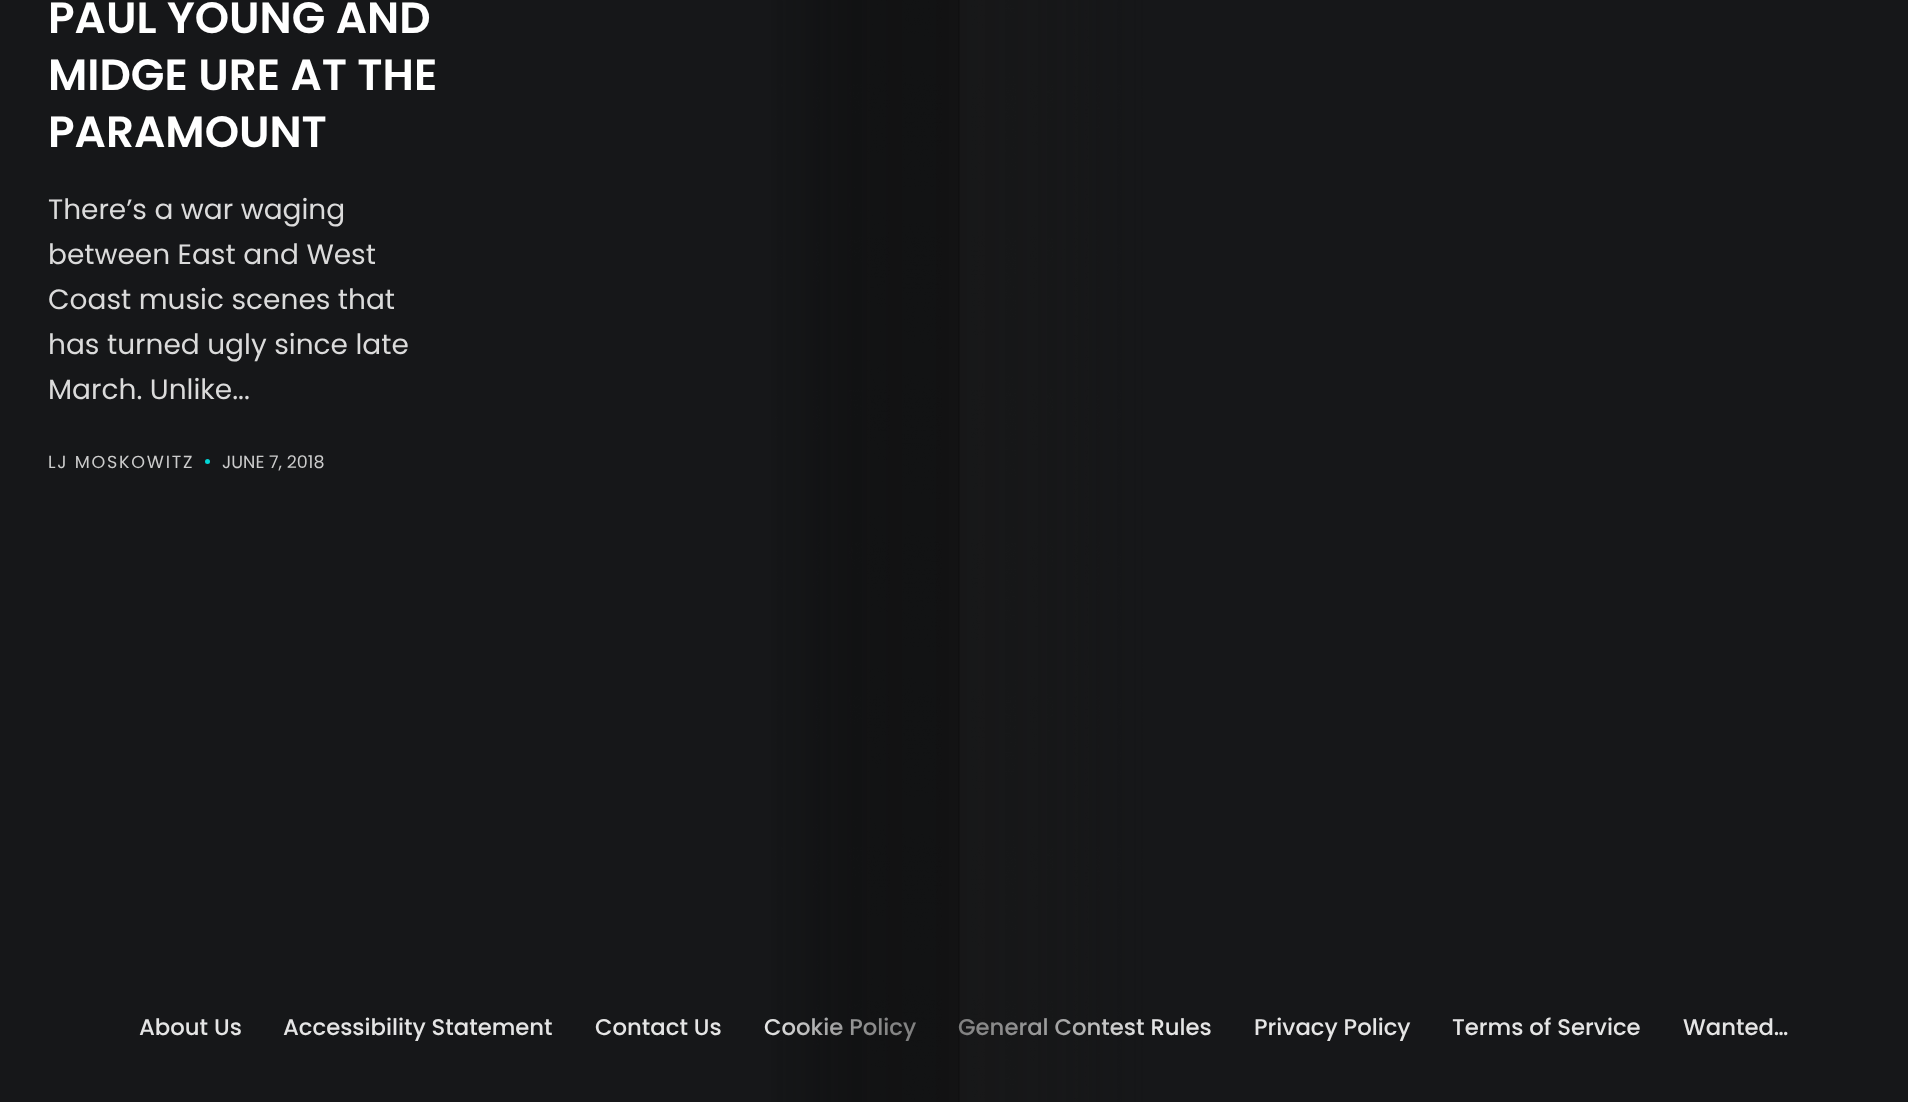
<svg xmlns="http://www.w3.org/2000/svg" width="1908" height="1102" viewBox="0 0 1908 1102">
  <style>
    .t1 { font: 600 43.75px Poppins; fill: #fff; }
    .t2 { font: 28px Poppins; fill: #dbdbdb; }
    .t3 { font: 17.5px Poppins; letter-spacing: 1.75px; fill: #ccc; }
    .t4 { font: 17.5px Poppins; fill: #ccc; }
    .t5 { font: 500 22.75px Poppins; fill: #e5e5e5; }
  </style>
  <rect width="100%" height="100%" fill="#161719"/>
  <text x="48" y="33" class="t1">PAUL YOUNG AND</text>
  <text x="48" y="90" class="t1">MIDGE URE AT THE</text>
  <text x="48" y="147" class="t1">PARAMOUNT</text>
  <text x="48" y="219" class="t2">There’s a war waging</text>
  <text x="48" y="264" class="t2">between East and West</text>
  <text x="48" y="309" class="t2">Coast music scenes that</text>
  <text x="48" y="354" class="t2">has turned ugly since late</text>
  <text x="48" y="399" class="t2">March. Unlike...</text>
  <text x="48" y="468" class="t3">LJ MOSKOWITZ</text>
  <circle cx="207.5" cy="461.5" r="2.5" fill="#02d6d6"/>
  <text x="222" y="468" class="t4">JUNE 7, 2018</text>
  <text x="764" y="1035" class="t5">Cookie Policy</text>
  <text x="958" y="1035" class="t5">General Contest Rules</text>
  <image x="771" y="0" width="372" height="1102" href="images/1.png"/>
  <text x="139" y="1035" class="t5">About Us</text>
  <text x="283" y="1035" class="t5">Accessibility Statement</text>
  <text x="595" y="1035" class="t5">Contact Us</text>
  <text x="1254" y="1035" class="t5">Privacy Policy</text>
  <text x="1452" y="1035" class="t5">Terms of Service</text>
  <text x="1683" y="1035" class="t5">Wanted…</text>
</svg>
